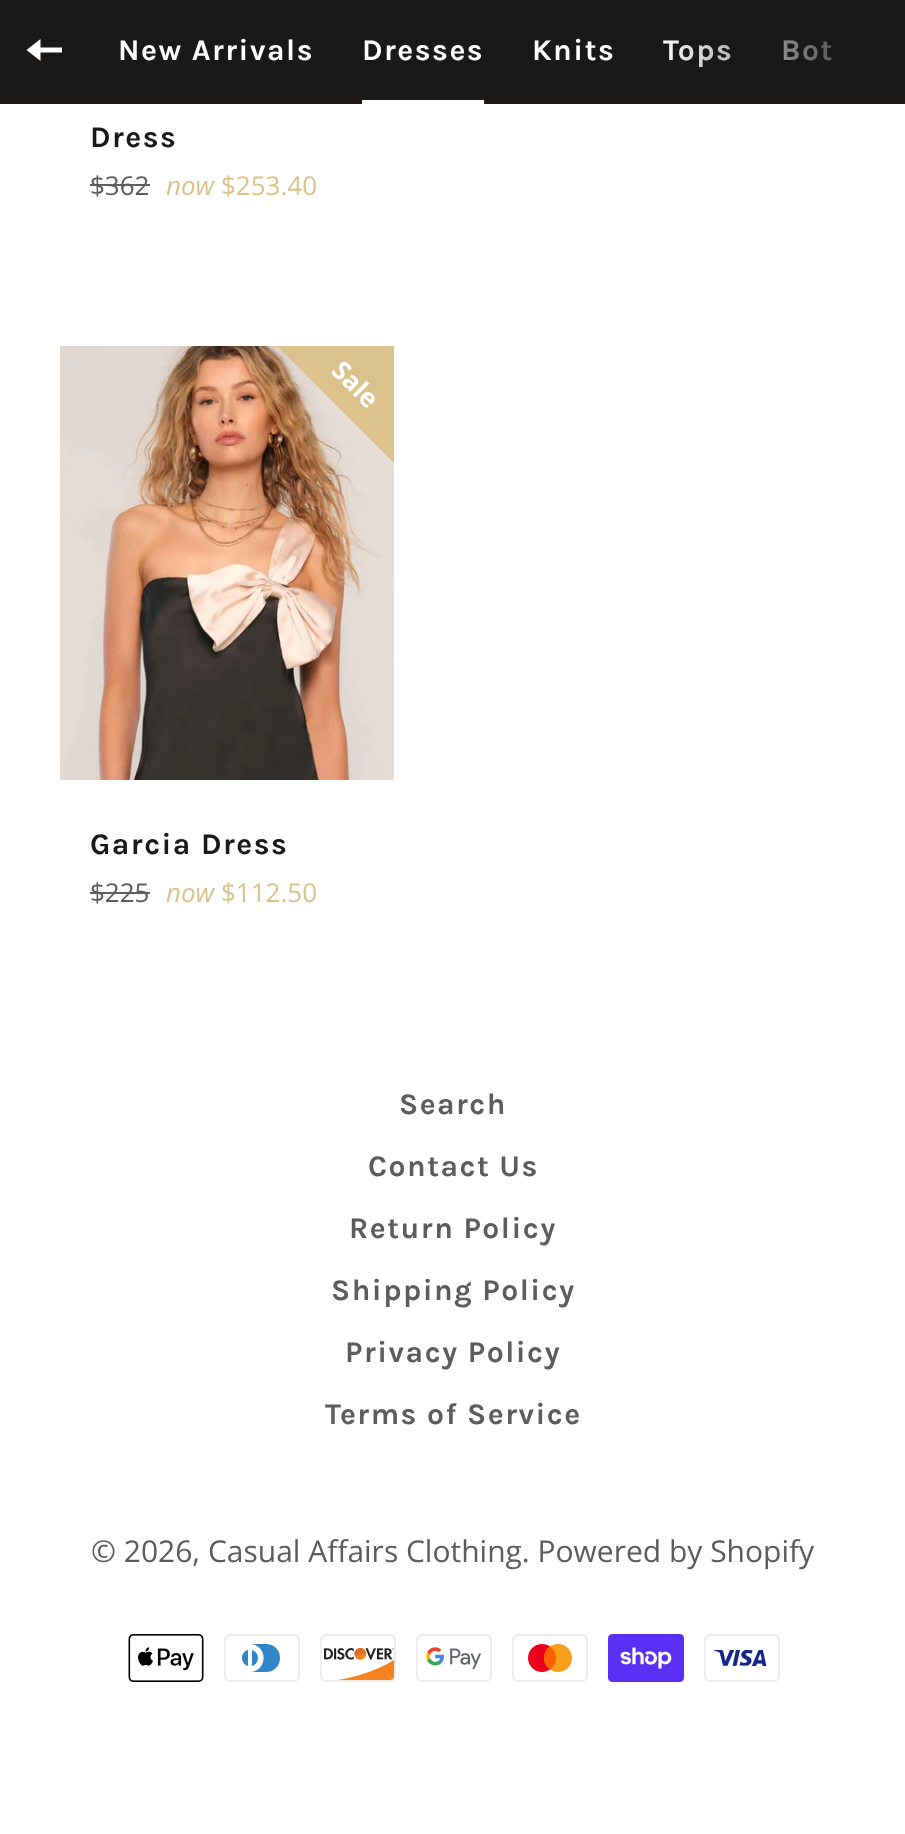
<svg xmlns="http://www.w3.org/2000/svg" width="905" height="1834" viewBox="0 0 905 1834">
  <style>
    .t1 { font: bold 30px Karla; letter-spacing: 1.5px; fill: #fff; }
    .t2 { font: bold 30px Karla; letter-spacing: 1.5px; fill: #1b1818; }
    .t3 { font: 26px Open Sans; fill: #5c5c5c; }
    .t4 { font: italic 26px Open Sans; fill: #dbc18b; }
    .t5 { font: 26px Open Sans; fill: #dbc18b; }
    .t6 { font: bold 26px Open Sans; fill: #fff; }
    .t7 { font: bold 30px Karla; letter-spacing: 1.5px; fill: #5c5c5c; }
    .t8 { font: 30px Open Sans; fill: #5c5c5c; }
  </style>
  <defs>
    <linearGradient id="g1" gradientUnits="userSpaceOnUse" x1="656" y1="52" x2="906" y2="52"><stop offset="0" stop-color="#1b1818" stop-opacity="0"/><stop offset="1" stop-color="#1b1818"/></linearGradient>
    <clipPath id="clip1"><rect x="60" y="346" width="334" height="568"/></clipPath>
  </defs>
  <rect width="100%" height="100%" fill="#fff"/>
  <rect x="0" y="0" width="905" height="104" fill="#1b1818"/>
  <path d="M40.5 47.5V39L26.5 50L40.5 61V52.5H62V47.5Z" fill="#fff"/>
  <text x="118" y="60" class="t1">New Arrivals</text>
  <text x="362" y="60" class="t1">Dresses</text>
  <rect x="362" y="100" width="122" height="4" fill="#fff"/>
  <text x="532" y="60" class="t1">Knits</text>
  <text x="663" y="60" class="t1">Tops</text>
  <text x="781" y="60" class="t1">Bot</text>
  <rect x="663" y="40" width="169" height="28" fill="url(#g1)"/>
  <text x="90" y="147" class="t2">Dress</text>
  <text x="90" y="195" class="t3">$362</text>
  <rect x="90" y="184" width="60" height="2" fill="#5f5f5f"/>
  <text x="166" y="195" class="t4">now</text>
  <text x="221" y="195" class="t5">$253.40</text>
  <image x="60" y="346" width="334" height="434" href="images/1.png"/>
  <g clip-path="url(#clip1)">
    <path d="M285 172L568 455L477 546L194 263Z" fill="#dbc18b"/>
  </g>
  <text x="330" y="372" transform="rotate(45 330 372)" class="t6">Sale</text>
  <text x="90" y="854" class="t2">Garcia Dress</text>
  <text x="90" y="902" class="t3">$225</text>
  <rect x="90" y="892" width="60" height="2" fill="#5f5f5f"/>
  <text x="166" y="902" class="t4">now</text>
  <text x="221" y="902" class="t5">$112.50</text>
  <text x="399" y="1114" class="t7">Search</text>
  <text x="368" y="1176" class="t7">Contact Us</text>
  <text x="349" y="1238" class="t7">Return Policy</text>
  <text x="331" y="1300" class="t7">Shipping Policy</text>
  <text x="345" y="1362" class="t7">Privacy Policy</text>
  <text x="325" y="1424" class="t7">Terms of Service</text>
  <text x="91" y="1562" class="t8">© 2026, Casual Affairs Clothing. Powered by Shopify</text>
  <image x="128" y="1634" width="76" height="48" href="images/2.png"/>
  <image x="224" y="1634" width="76" height="48" href="images/3.png"/>
  <image x="320" y="1634" width="76" height="48" href="images/4.png"/>
  <image x="416" y="1634" width="76" height="48" href="images/5.png"/>
  <image x="512" y="1634" width="76" height="48" href="images/6.png"/>
  <image x="608" y="1634" width="76" height="48" href="images/7.png"/>
  <image x="704" y="1634" width="76" height="48" href="images/8.png"/>
</svg>
